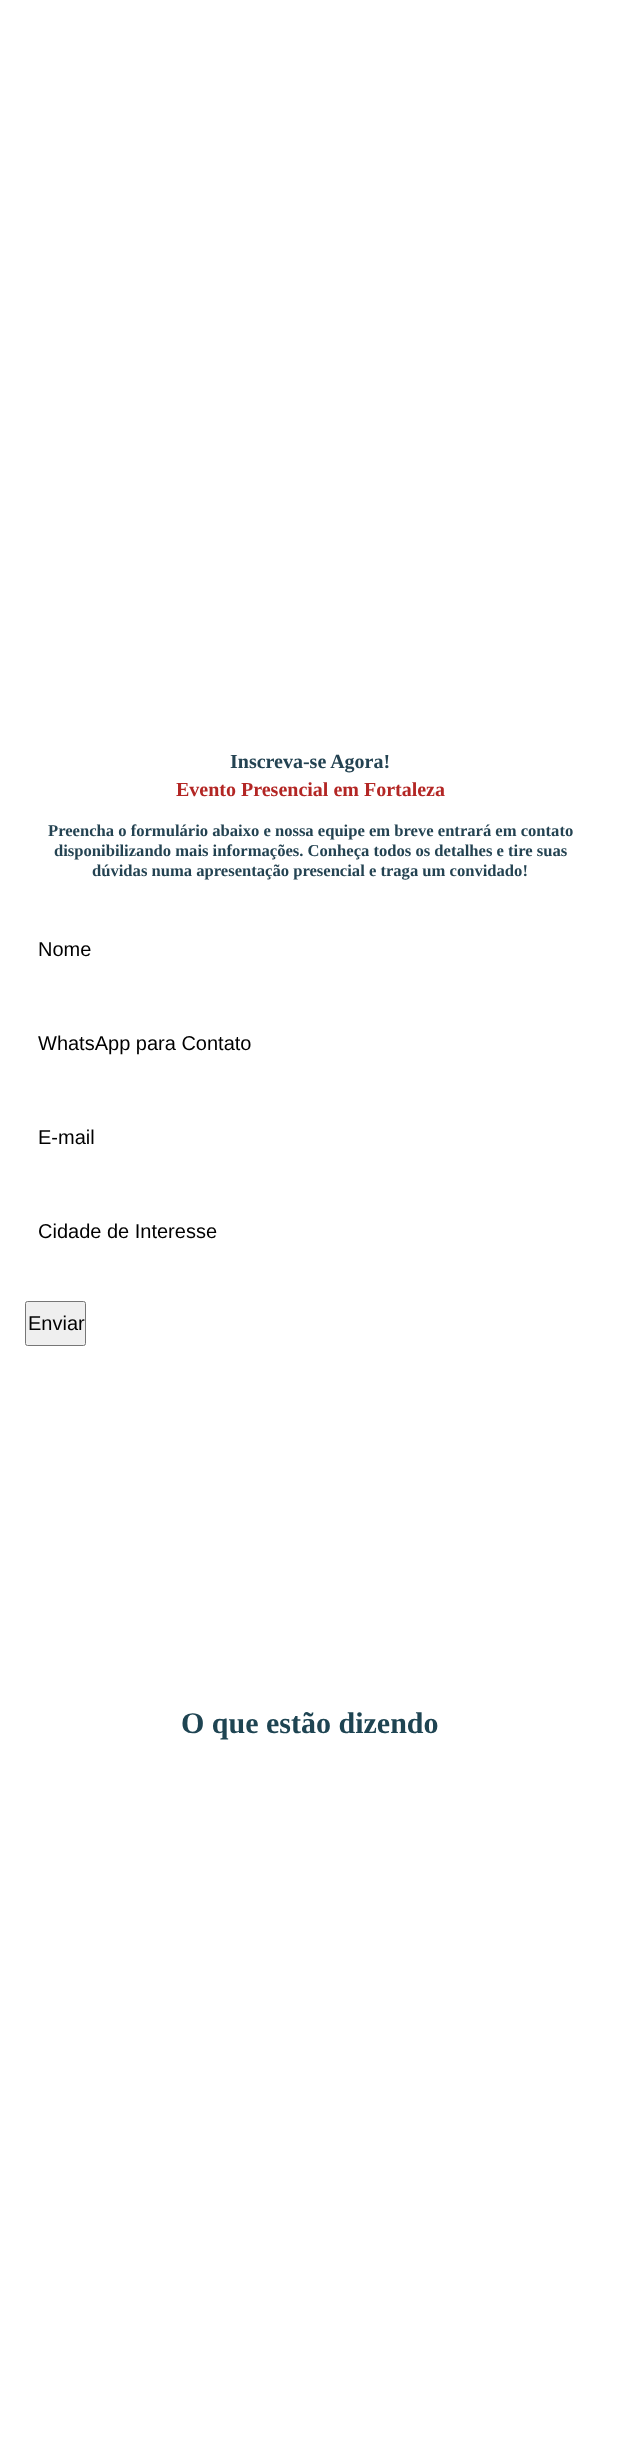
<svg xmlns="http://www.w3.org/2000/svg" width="620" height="2462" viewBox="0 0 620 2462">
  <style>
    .t1 { font: bold 20px Liberation Serif; fill: #244352; }
    .t2 { font: bold 20px Liberation Serif; fill: #b32624; }
    .t3 { font: bold 16.6px Liberation Serif; fill: #244352; }
    .t4 { font: 20px Liberation Sans; fill: #000; }
    .t5 { font: bold 30px Liberation Serif; fill: #1e4452; }
  </style>
  <rect width="100%" height="100%" fill="#fff"/>
  <text x="230" y="768" class="t1">Inscreva-se Agora!</text>
  <text x="176" y="796" class="t2">Evento Presencial em Fortaleza</text>
  <text x="48" y="836" class="t3">Preencha o formulário abaixo e nossa equipe em breve entrará em contato</text>
  <text x="54" y="856" class="t3">disponibilizando mais informações. Conheça todos os detalhes e tire suas</text>
  <text x="92" y="876" class="t3">dúvidas numa apresentação presencial e traga um convidado!</text>
  <text x="38" y="956" class="t4">Nome</text>
  <text x="38" y="1050" class="t4">WhatsApp para Contato</text>
  <text x="38" y="1144" class="t4">E-mail</text>
  <text x="38" y="1238" class="t4">Cidade de Interesse</text>
  <rect x="25.5" y="1301.5" width="60" height="44" rx="2" fill="#efefef" stroke="#767676"/>
  <text x="28" y="1330" class="t4">Enviar</text>
  <text x="181" y="1733" class="t5">O que estão dizendo</text>
</svg>
